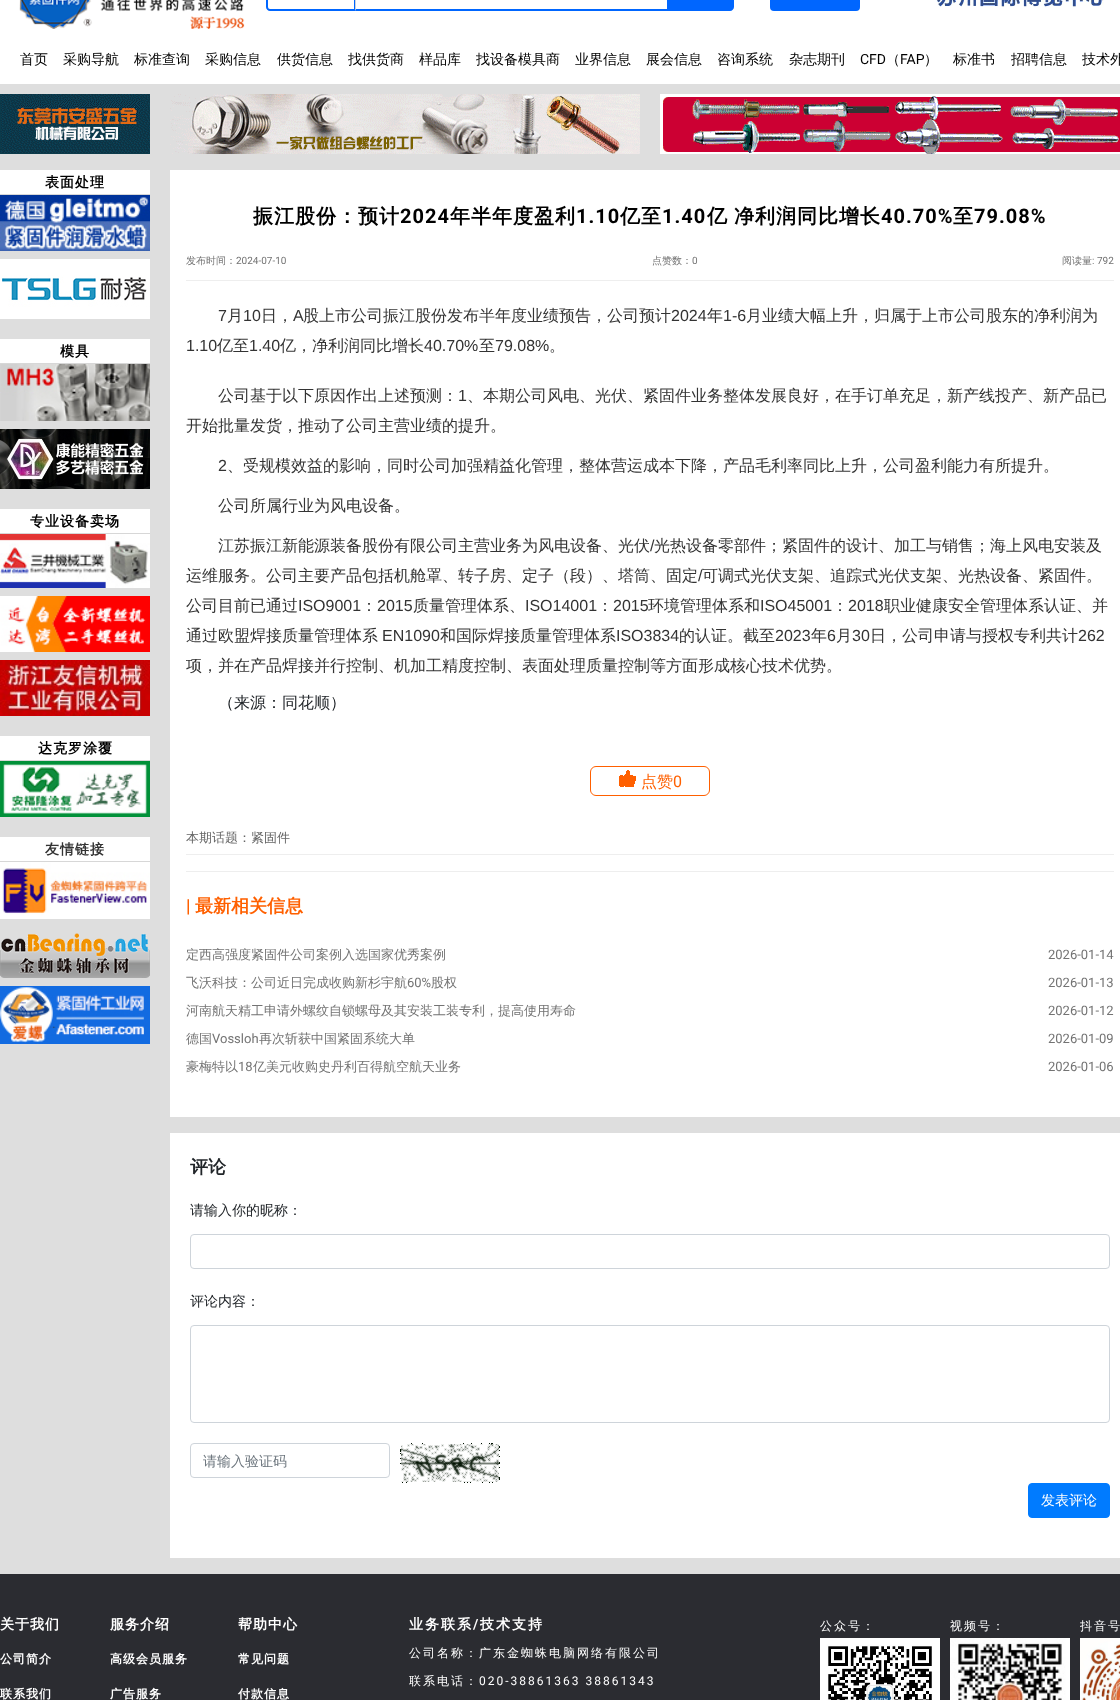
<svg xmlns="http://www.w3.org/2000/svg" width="1120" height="1700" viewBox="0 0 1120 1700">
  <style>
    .t1 { font: 500 14px WenQuanYi Zen Hei; fill: #000; }
    .t2 { font: 14px Roboto; fill: #000; }
    .t3 { font: bold 14px WenQuanYi Zen Hei; letter-spacing: 1px; fill: #000; }
    .t4 { font: bold 14px WenQuanYi Zen Hei; letter-spacing: 1px; fill: #333; }
    .t5 { font: bold 20px WenQuanYi Zen Hei; letter-spacing: 1px; fill: #000; }
    .t6 { font: bold 20px Roboto; letter-spacing: 1px; fill: #000; }
    .t7 { font: 500 10px WenQuanYi Zen Hei; fill: #737373; }
    .t8 { font: 10px Roboto; fill: #737373; }
    .t9 { font: 16px Liberation Sans; fill: #333; }
    .t10 { font: 500 16px WenQuanYi Zen Hei; fill: #333; }
    .t11 { font: 500 16px WenQuanYi Zen Hei; fill: #212529; }
    .t12 { font: 500 16px WenQuanYi Zen Hei; fill: #ff6000; }
    .t13 { font: 16px Roboto; fill: #ff6000; }
    .t14 { font: 500 13px WenQuanYi Zen Hei; fill: #666; }
    .t15 { font: 600 18px Roboto; fill: #ff6000; }
    .t16 { font: bold 18px WenQuanYi Zen Hei; fill: #ff6000; }
    .t17 { font: 500 13px WenQuanYi Zen Hei; fill: #737373; }
    .t18 { font: 13px Roboto; fill: #737373; }
    .t19 { font: bold 18px WenQuanYi Zen Hei; fill: #212529; }
    .t20 { font: 500 14px WenQuanYi Zen Hei; fill: #212529; }
    .t21 { font: 500 14px WenQuanYi Zen Hei; fill: #6c757d; }
    .t22 { font: 500 14px WenQuanYi Zen Hei; fill: #fff; }
    .t23 { font: bold 14px WenQuanYi Zen Hei; letter-spacing: 1px; fill: #fff; }
    .t24 { font: bold 12px WenQuanYi Zen Hei; letter-spacing: 1px; fill: #fff; }
    .t25 { font: bold 14px WenQuanYi Zen Hei; letter-spacing: 2px; fill: #fff; }
    .t26 { font: 600 14px Roboto; letter-spacing: 2px; fill: #fff; }
    .t27 { font: 500 12px WenQuanYi Zen Hei; letter-spacing: 2px; fill: #fff; }
    .t28 { font: 12px Roboto; letter-spacing: 2px; fill: #fff; }
  </style>
  <rect width="100%" height="100%" fill="#fff"/>
  <image x="19" y="0" width="226" height="29" href="images/1.png"/>
  <path d="M270-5H355V10H270C268.5 10 267 8.5 267 7V-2C267-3.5 268.5-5 270-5Z" fill="none" stroke="#06f" stroke-width="2"/>
  <rect x="667" y="0" width="1" height="11" fill="#06f"/>
  <path d="M669 11H355L356 9H667Z" fill="#06f"/>
  <path d="M355 11V-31L356-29V9Z" fill="#ced4da"/>
  <path d="M668-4H730C732-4 734-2 734 0V7C734 9 732 11 730 11H668Z" fill="#06f"/>
  <rect x="770" y="-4" width="90" height="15" rx="4" fill="#06f"/>
  <image x="936" y="0" width="168" height="8" href="images/2.png"/>
  <text x="20" y="64" class="t1">首页</text>
  <text x="63" y="64" class="t1">采购导航</text>
  <text x="134" y="64" class="t1">标准查询</text>
  <text x="205" y="64" class="t1">采购信息</text>
  <text x="277" y="64" class="t1">供货信息</text>
  <text x="348" y="64" class="t1">找供货商</text>
  <text x="419" y="64" class="t1">样品库</text>
  <text x="476" y="64" class="t1">找设备模具商</text>
  <text x="575" y="64" class="t1">业界信息</text>
  <text x="646" y="64" class="t1">展会信息</text>
  <text x="717" y="64" class="t1">咨询系统</text>
  <text x="789" y="64" class="t1">杂志期刊</text>
  <text x="860" y="64" class="t2">CFD</text>
  <text x="886" y="64" class="t1">（</text>
  <text x="900" y="64" class="t2">FAP</text>
  <text x="924" y="64" class="t1">）</text>
  <text x="953" y="64" class="t1">标准书</text>
  <text x="1011" y="64" class="t1">招聘信息</text>
  <text x="1082" y="64" class="t1">技术外</text>
  <rect x="0" y="84" width="1120" height="1490" fill="#dedede"/>
  <image x="0" y="94" width="150" height="60" href="images/3.png"/>
  <image x="170" y="94" width="470" height="60" href="images/4.png"/>
  <image x="660" y="94" width="460" height="60" href="images/5.png"/>
  <rect x="0" y="170" width="150" height="24" fill="#fff"/>
  <rect x="0" y="194" width="150" height="1" fill="#d7d7d7"/>
  <text x="45" y="187" class="t3">表面处理</text>
  <image x="0" y="195" width="150" height="56" href="images/6.png"/>
  <image x="0" y="259" width="150" height="60" href="images/7.png"/>
  <rect x="0" y="339" width="150" height="24" fill="#fff"/>
  <rect x="0" y="363" width="150" height="1" fill="#d7d7d7"/>
  <text x="60" y="356" class="t3">模具</text>
  <image x="0" y="364" width="150" height="57" href="images/8.png"/>
  <image x="0" y="429" width="150" height="60" href="images/9.png"/>
  <rect x="0" y="509" width="150" height="24" fill="#fff"/>
  <rect x="0" y="533" width="150" height="1" fill="#d7d7d7"/>
  <text x="30" y="526" class="t3">专业设备卖场</text>
  <image x="0" y="534" width="150" height="54" href="images/10.png"/>
  <image x="0" y="596" width="150" height="56" href="images/11.png"/>
  <image x="0" y="660" width="150" height="56" href="images/12.png"/>
  <rect x="0" y="736" width="150" height="24" fill="#fff"/>
  <rect x="0" y="760" width="150" height="1" fill="#d7d7d7"/>
  <text x="38" y="753" class="t3">达克罗涂覆</text>
  <image x="0" y="761" width="150" height="56" href="images/13.png"/>
  <rect x="0" y="837" width="150" height="24" fill="#fff"/>
  <rect x="0" y="861" width="150" height="1" fill="#d7d7d7"/>
  <text x="45" y="854" class="t4">友情链接</text>
  <image x="0" y="862" width="150" height="57" href="images/14.png"/>
  <image x="0" y="933" width="150" height="45" href="images/15.png"/>
  <image x="0" y="986" width="150" height="58" href="images/16.png"/>
  <rect x="170" y="170" width="950" height="947" fill="#fff"/>
  <text x="253" y="223" class="t5">振江股份：预计</text>
  <text x="400" y="223" class="t6">2024</text>
  <text x="450" y="223" class="t5">年半年度盈利</text>
  <text x="576" y="223" class="t6">1.10</text>
  <text x="620" y="223" class="t5">亿至</text>
  <text x="662" y="223" class="t6">1.40</text>
  <text x="707" y="223" word-spacing="-1" class="t5">亿 净利润同比增长</text>
  <text x="881" y="223" class="t6">40.70%</text>
  <text x="953" y="223" class="t5">至</text>
  <text x="974" y="223" class="t6">79.08%</text>
  <rect x="186" y="280" width="928" height="1" fill="#eee"/>
  <text x="186" y="264" class="t7">发布时间：</text>
  <text x="236" y="264" class="t8">2024-07-10</text>
  <text x="652" y="264" class="t7">点赞数：</text>
  <text x="692" y="264" class="t8">0</text>
  <text x="1062" y="264" class="t7">阅读量</text>
  <text x="1092" y="264" class="t8">: 792</text>
  <text x="218" y="321" class="t9">7</text>
  <text x="227" y="321" class="t10">月</text>
  <text x="243" y="321" class="t9">10</text>
  <text x="261" y="321" class="t10">日，</text>
  <text x="293" y="321" class="t9">A</text>
  <text x="303" y="321" class="t10">股上市公司振江股份发布半年度业绩预告，公司预计</text>
  <text x="671" y="321" class="t9">2024</text>
  <text x="707" y="321" class="t10">年</text>
  <text x="723" y="321" class="t9">1-6</text>
  <text x="746" y="321" class="t10">月业绩大幅上升，归属于上市公司股东的净利润为</text>
  <text x="186" y="351" class="t9">1.10</text>
  <text x="217" y="351" class="t10">亿至</text>
  <text x="249" y="351" class="t9">1.40</text>
  <text x="280" y="351" class="t10">亿，净利润同比增长</text>
  <text x="424" y="351" class="t9">40.70%</text>
  <text x="479" y="351" class="t10">至</text>
  <text x="495" y="351" class="t9">79.08%</text>
  <text x="549" y="351" class="t10">。</text>
  <text x="218" y="401" class="t10">公司基于以下原因作出上述预测：</text>
  <text x="458" y="401" class="t9">1</text>
  <text x="467" y="401" class="t10">、本期公司风电、光伏、紧固件业务整体发展良好，在手订单充足，新产线投产、新产品已</text>
  <text x="186" y="431" class="t10">开始批量发货，推动了公司主营业绩的提升。</text>
  <text x="218" y="471" class="t9">2</text>
  <text x="227" y="471" class="t10">、受规模效益的影响，同时公司加强精益化管理，整体营运成本下降，产品毛利率同比上升，公司盈利能力有所提升。</text>
  <text x="218" y="511" class="t10">公司所属行业为风电设备。</text>
  <text x="218" y="551" class="t10">江苏振江新能源装备股份有限公司主营业务为风电设备、光伏</text>
  <text x="650" y="551" class="t9">/</text>
  <text x="654" y="551" class="t10">光热设备零部件；紧固件的设计、加工与销售；海上风电安装及</text>
  <text x="186" y="581" class="t10">运维服务。公司主要产品包括机舱罩、转子房、定子（段）、塔筒、固定</text>
  <text x="698" y="581" class="t9">/</text>
  <text x="702" y="581" class="t10">可调式光伏支架、追踪式光伏支架、光热设备、紧固件。</text>
  <text x="186" y="611" class="t10">公司目前已通过</text>
  <text x="298" y="611" class="t9">ISO9001</text>
  <text x="361" y="611" class="t10">：</text>
  <text x="377" y="611" class="t9">2015</text>
  <text x="413" y="611" class="t10">质量管理体系、</text>
  <text x="525" y="611" class="t9">ISO14001</text>
  <text x="597" y="611" class="t10">：</text>
  <text x="613" y="611" class="t9">2015</text>
  <text x="648" y="611" class="t10">环境管理体系和</text>
  <text x="760" y="611" class="t9">ISO45001</text>
  <text x="832" y="611" class="t10">：</text>
  <text x="848" y="611" class="t9">2018</text>
  <text x="884" y="611" class="t10">职业健康安全管理体系认证、并</text>
  <text x="186" y="641" class="t10">通过欧盟焊接质量管理体系</text>
  <text x="382" y="641" class="t9">EN1090</text>
  <text x="440" y="641" class="t10">和国际焊接质量管理体系</text>
  <text x="616" y="641" class="t9">ISO3834</text>
  <text x="679" y="641" class="t10">的认证。截至</text>
  <text x="775" y="641" class="t9">2023</text>
  <text x="811" y="641" class="t10">年</text>
  <text x="827" y="641" class="t9">6</text>
  <text x="836" y="641" class="t10">月</text>
  <text x="852" y="641" class="t9">30</text>
  <text x="870" y="641" class="t10">日，公司申请与授权专利共计</text>
  <text x="1078" y="641" class="t9">262</text>
  <text x="186" y="671" class="t10">项，并在产品焊接并行控制、机加工精度控制、表面处理质量控制等方面形成核心技术优势。</text>
  <text x="218" y="708" class="t11">（来源：同花顺）</text>
  <rect x="590.5" y="766.5" width="119" height="29" rx="5.5" fill="none" stroke="#ff6000"/>
  <image x="619" y="770" width="17" height="17" href="images/17.png"/>
  <text x="641" y="787" class="t12">点赞</text>
  <text x="673" y="787" class="t13">0</text>
  <rect x="186" y="854" width="928" height="1" fill="#eee"/>
  <text x="186" y="842" class="t14">本期话题：紧固件</text>
  <rect x="186" y="871" width="928" height="1" fill="#eee"/>
  <text x="186" y="912" class="t15">|</text>
  <text x="195" y="912" class="t16">最新相关信息</text>
  <text x="186" y="959" class="t17">定西高强度紧固件公司案例入选国家优秀案例</text>
  <text x="1048" y="959" class="t18">2026-01-14</text>
  <text x="186" y="987" class="t17">飞沃科技：公司近日完成收购新杉宇航</text>
  <text x="407" y="987" class="t18">60%</text>
  <text x="431" y="987" class="t17">股权</text>
  <text x="1048" y="987" class="t18">2026-01-13</text>
  <text x="186" y="1015" class="t17">河南航天精工申请外螺纹自锁螺母及其安装工装专利，提高使用寿命</text>
  <text x="1048" y="1015" class="t18">2026-01-12</text>
  <text x="186" y="1043" class="t17">德国</text>
  <text x="212" y="1043" class="t18">Vossloh</text>
  <text x="259" y="1043" class="t17">再次斩获中国紧固系统大单</text>
  <text x="1048" y="1043" class="t18">2026-01-09</text>
  <text x="186" y="1071" class="t17">豪梅特以</text>
  <text x="238" y="1071" class="t18">18</text>
  <text x="253" y="1071" class="t17">亿美元收购史丹利百得航空航天业务</text>
  <text x="1048" y="1071" class="t18">2026-01-06</text>
  <rect x="170" y="1133" width="950" height="425" fill="#fff"/>
  <text x="190" y="1173" class="t19">评论</text>
  <text x="190" y="1215" class="t20">请输入你的昵称：</text>
  <rect x="190.5" y="1234.5" width="919" height="34" rx="3.5" fill="none" stroke="#ced4da"/>
  <text x="190" y="1306" class="t20">评论内容：</text>
  <rect x="190.5" y="1325.5" width="919" height="97" rx="3.5" fill="none" stroke="#ced4da"/>
  <rect x="190.5" y="1443.5" width="199" height="34" rx="3.5" fill="none" stroke="#ced4da"/>
  <text x="203" y="1466" class="t21">请输入验证码</text>
  <image x="400" y="1443" width="100" height="40" href="images/18.png"/>
  <rect x="1028.5" y="1483.5" width="81" height="34" rx="3.5" fill="#007bff" stroke="#007bff"/>
  <text x="1041" y="1505" class="t22">发表评论</text>
  <rect x="0" y="1574" width="1120" height="126" fill="#2b2c31"/>
  <text x="0" y="1629" class="t23">关于我们</text>
  <text x="0" y="1663" class="t24">公司简介</text>
  <text x="0" y="1698" class="t24">联系我们</text>
  <text x="110" y="1629" class="t23">服务介绍</text>
  <text x="110" y="1663" class="t24">高级会员服务</text>
  <text x="110" y="1698" class="t24">广告服务</text>
  <text x="238" y="1629" class="t23">帮助中心</text>
  <text x="238" y="1663" class="t24">常见问题</text>
  <text x="238" y="1698" class="t24">付款信息</text>
  <text x="409" y="1629" class="t25">业务联系</text>
  <text x="473" y="1629" class="t26">/</text>
  <text x="480" y="1629" class="t25">技术支持</text>
  <text x="409" y="1657" class="t27">公司名称：广东金蜘蛛电脑网络有限公司</text>
  <text x="409" y="1685" class="t27">联系电话：</text>
  <text x="479" y="1685" class="t28">020-38861363 38861343</text>
  <text x="820" y="1630" class="t27">公众号：</text>
  <image x="820" y="1638" width="120" height="62" href="images/19.png"/>
  <text x="950" y="1630" class="t27">视频号：</text>
  <image x="950" y="1638" width="120" height="62" href="images/20.png"/>
  <text x="1080" y="1630" class="t27">抖音号</text>
  <image x="1080" y="1638" width="40" height="62" href="images/21.png"/>
</svg>
